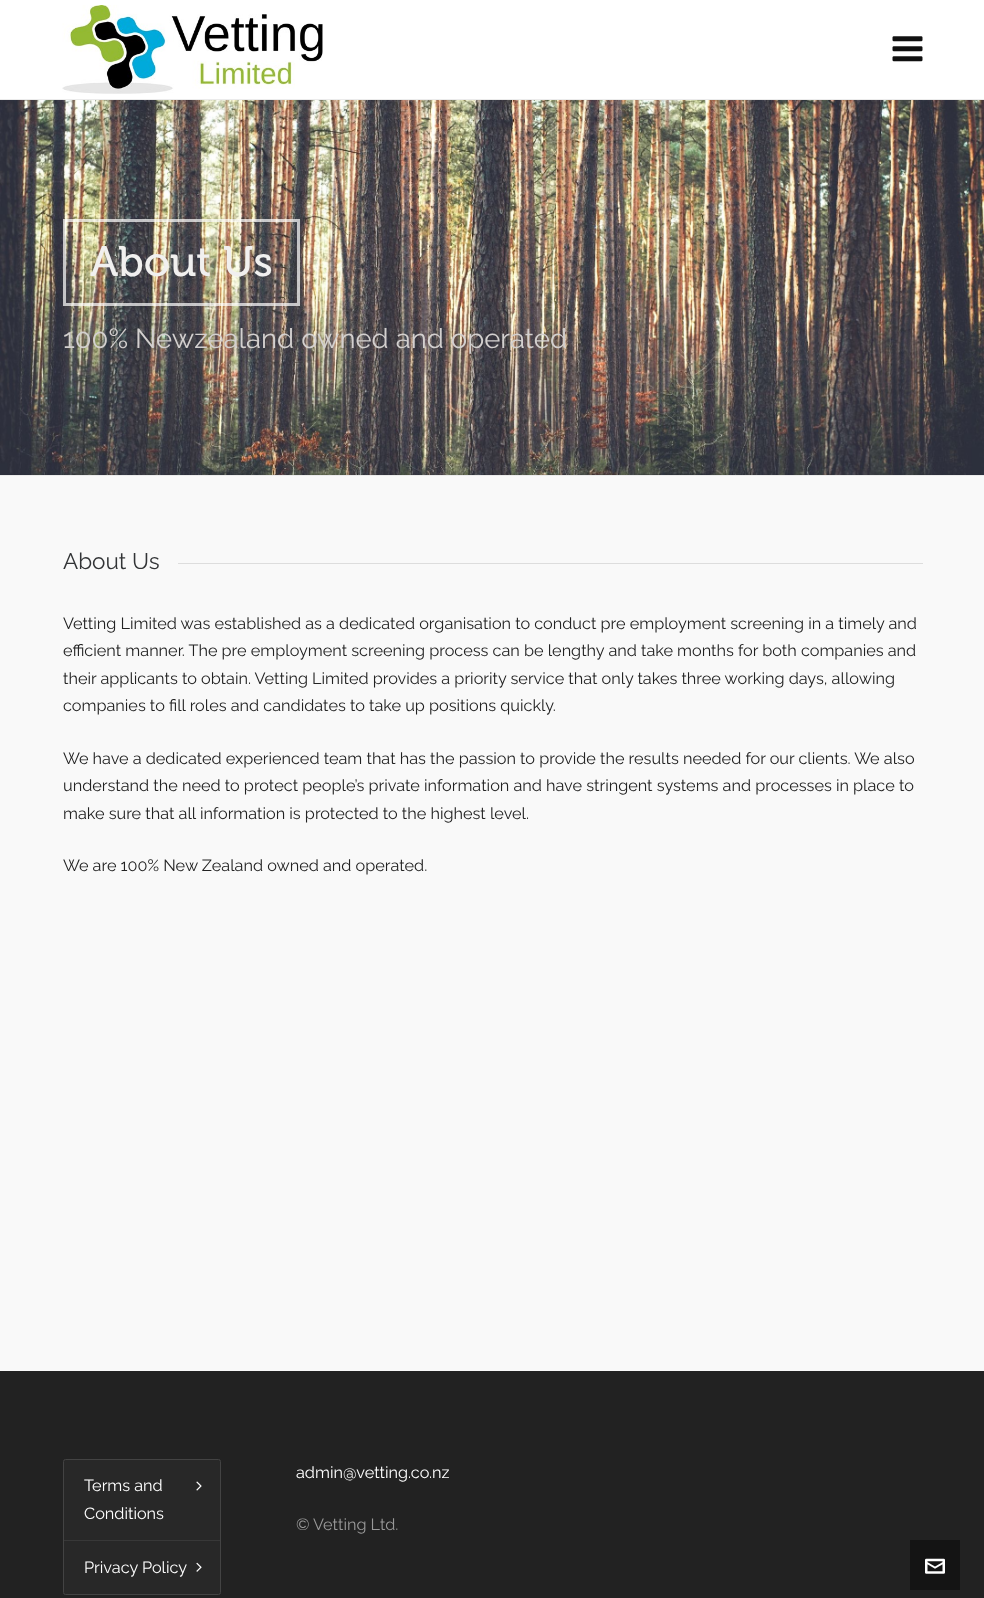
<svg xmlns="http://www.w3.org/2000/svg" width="984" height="1598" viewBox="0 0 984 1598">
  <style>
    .t1 { font: 42.5px 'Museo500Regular'; fill: #f1f0ef; }
    .t2 { font: 100 27.5px Raleway; fill: #d3d0cf; }
    .t3 { font: 100 22.5px Raleway; fill: #323436; }
    .t4 { font: 100 16.25px Raleway; fill: #222; }
    .t5 { font: 100 16.25px Raleway; fill: #fff; }
    .t6 { font: 100 16.25px Raleway; fill: #999; }
  </style>
  <rect width="100%" height="100%" fill="#f9f9f9"/>
  <rect x="0" y="0" width="984" height="99" fill="#fff"/>
  <rect x="0" y="99" width="984" height="1" fill="#ebebeb"/>
  <image x="62" y="5" width="261" height="89" href="images/1.png"/>
  <image x="892" y="36" width="31" height="26" href="images/2.png"/>
  <rect x="0" y="475" width="984" height="1" fill="#ebebeb"/>
  <image x="0" y="100" width="984" height="375" href="images/3.png"/>
  <rect x="64.5" y="220.5" width="234" height="84" fill="none" stroke="#ffffffb3" stroke-width="3"/>
  <text x="90" y="276" class="t1">About Us</text>
  <text x="63" y="348" class="t2">100% Newzealand owned and operated</text>
  <text x="63" y="569" class="t3">About Us</text>
  <rect x="178" y="563" width="745" height="1" fill="#ddd"/>
  <text x="63" y="629" class="t4">Vetting Limited was established as a dedicated organisation to conduct pre employment screening in a timely and</text>
  <text x="63" y="656" class="t4">efficient manner. The pre employment screening process can be lengthy and take months for both companies and</text>
  <text x="63" y="684" class="t4">their applicants to obtain. Vetting Limited provides a priority service that only takes three working days, allowing</text>
  <text x="63" y="711" class="t4">companies to fill roles and candidates to take up positions quickly.</text>
  <text x="63" y="764" class="t4">We have a dedicated experienced team that has the passion to provide the results needed for our clients. We also</text>
  <text x="63" y="791" class="t4">understand the need to protect people’s private information and have stringent systems and processes in place to</text>
  <text x="63" y="819" class="t4">make sure that all information is protected to the highest level.</text>
  <text x="63" y="871" class="t4">We are 100% New Zealand owned and operated.</text>
  <rect x="0" y="1371" width="984" height="227" fill="#222"/>
  <rect x="63.5" y="1459.5" width="157" height="135" rx="2" fill="none" stroke="#434343"/>
  <rect x="64" y="1460" width="156" height="80" fill="#9696960d"/>
  <text x="84" y="1491" class="t5">Terms and</text>
  <image x="196" y="1481" width="6" height="10" href="images/4.png"/>
  <text x="84" y="1519" class="t5">Conditions</text>
  <rect x="64" y="1540" width="156" height="1" fill="#383838"/>
  <rect x="64" y="1541" width="156" height="53" fill="#9696960d"/>
  <text x="84" y="1573" class="t5">Privacy Policy</text>
  <image x="196" y="1562" width="6" height="10" href="images/5.png"/>
  <text x="296" y="1478" class="t5">admin@vetting.co.nz</text>
  <text x="296" y="1530" class="t6">© Vetting Ltd.</text>
  <rect x="910" y="1540" width="50" height="50" fill="#141414"/>
  <image x="925" y="1558" width="20" height="16" href="images/6.png"/>
</svg>
